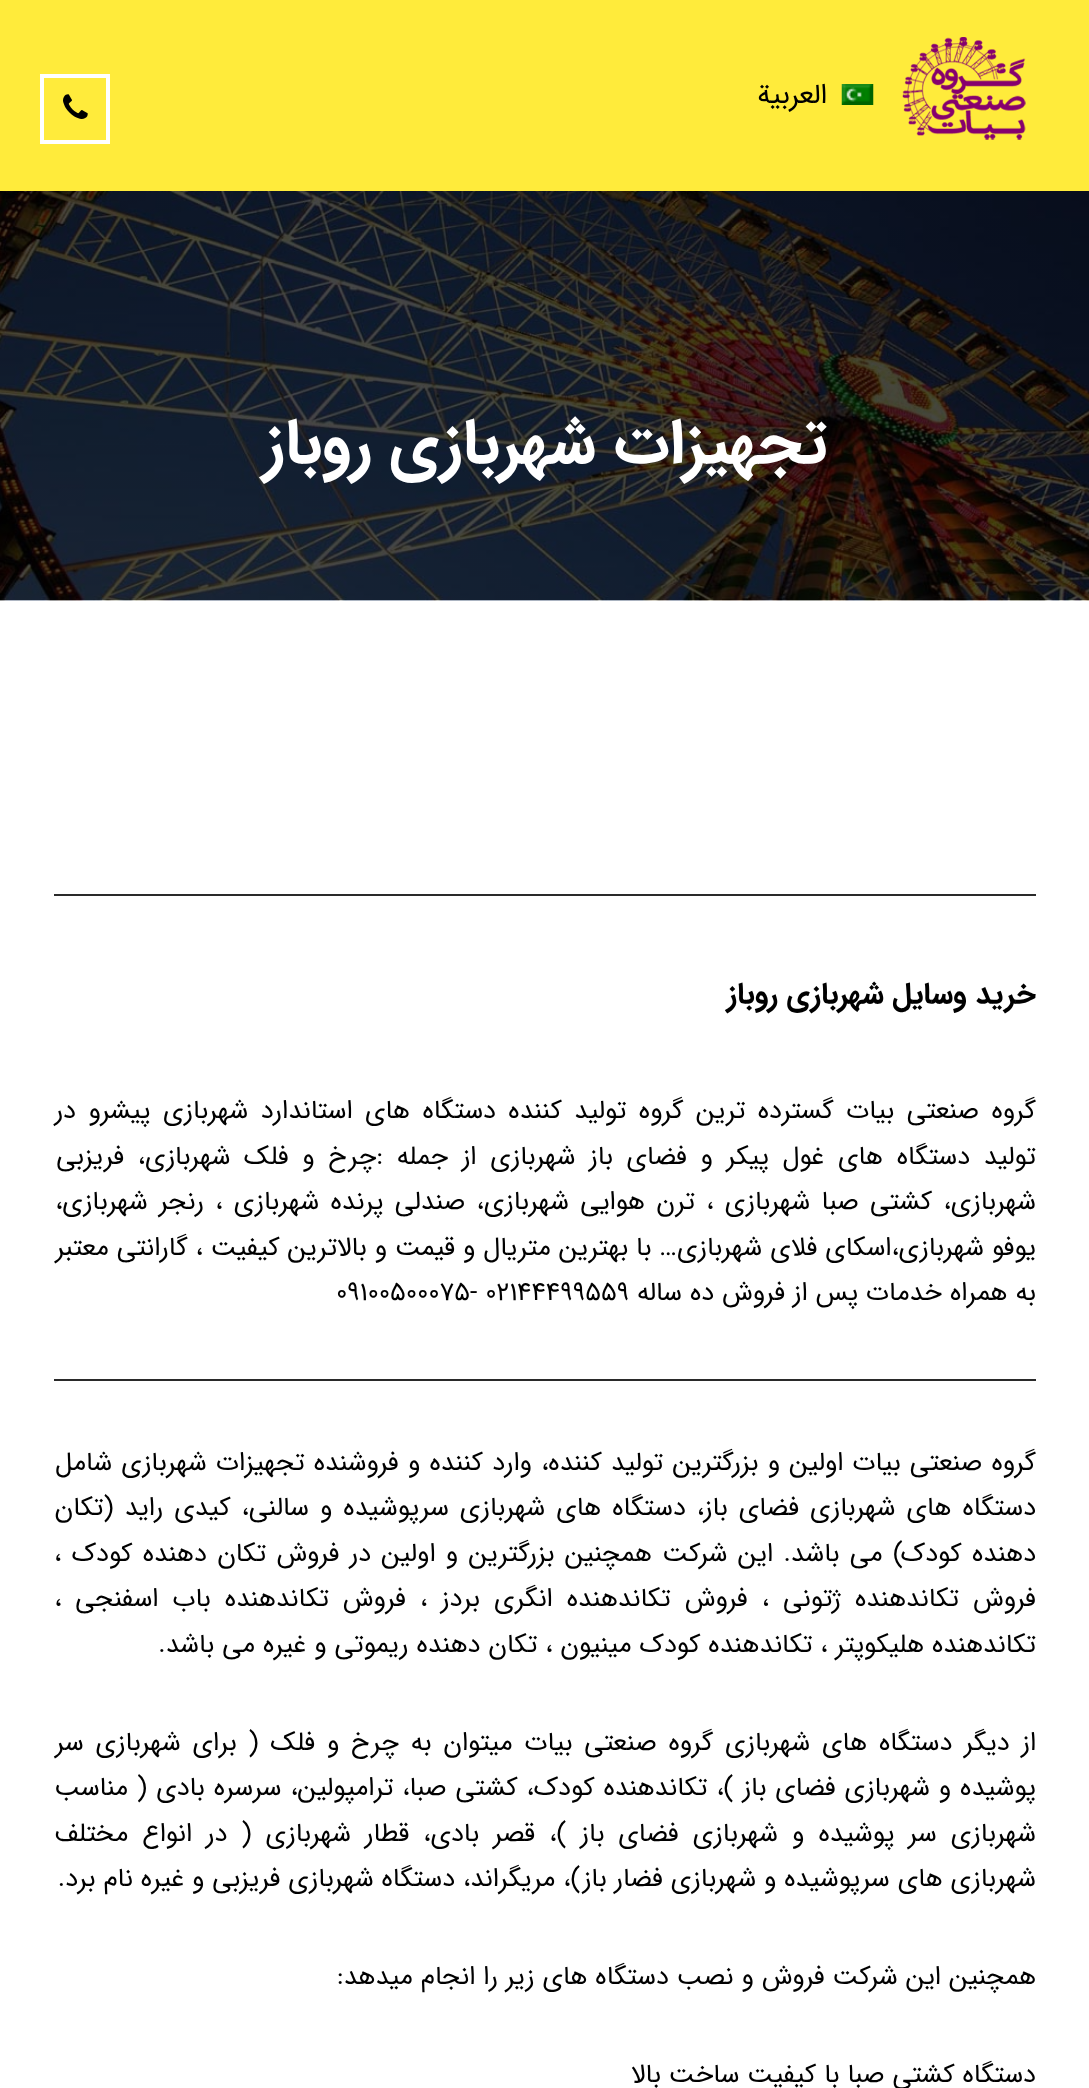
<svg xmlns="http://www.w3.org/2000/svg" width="1089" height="2088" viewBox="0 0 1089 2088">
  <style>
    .t1 { font: 28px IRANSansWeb; direction: rtl; fill: #000; }
    .t2 { font: bold 63px IRANSansWeb; direction: rtl; fill: #fff; }
    .t3 { font: bold 29.75px IRANSansWeb; direction: rtl; fill: #000; }
    .t4 { font: 26.25px IRANSansWeb; direction: rtl; fill: #000; }
    .t5 { font: 26.25px IRANSansWeb; fill: #000; }
  </style>
  <rect width="100%" height="100%" fill="#fff"/>
  <rect x="0" y="0" width="1089" height="191" fill="#ffeb3b"/>
  <image x="902" y="37" width="124" height="103" href="images/1.png"/>
  <image x="841" y="84" width="33" height="21" href="images/2.png"/>
  <text x="827" y="103" class="t1">العربية</text>
  <rect x="42" y="76" width="66" height="66" fill="none" stroke="#fff" stroke-width="4"/>
  <image x="63" y="94" width="25" height="25" href="images/3.png"/>
  <image x="0" y="191" width="1089" height="410" href="images/4.png"/>
  <text x="827" y="462" class="t2">تجهیزات شهربازی روباز</text>
  <rect x="54" y="894" width="982" height="2" fill="#2a2a2a"/>
  <text x="1036" y="1003" class="t3">خرید وسایل شهربازی روباز</text>
  <text x="1036" y="1118" word-spacing="4.5" class="t4">گروه صنعتی بیات گسترده ترین گروه تولید کننده دستگاه های استاندارد شهربازی پیشرو در</text>
  <text x="1036" y="1164" word-spacing="5.75" class="t4">تولید دستگاه های غول پیکر و فضای باز شهربازی از جمله :چرخ و فلک شهربازی، فریزبی</text>
  <text x="1036" y="1209" word-spacing="3.4" class="t4">شهربازی، کشتی صبا شهربازی ، ترن هوایی شهربازی، صندلی پرنده شهربازی ، رنجر شهربازی،</text>
  <text x="1036" y="1255" class="t4">یوفو شهربازی،اسکای فلای شهربازی… با بهترین متریال و قیمت و بالاترین کیفیت ، گارانتی معتبر</text>
  <text x="1036" y="1300" class="t4">به همراه خدمات پس از فروش ده ساله</text>
  <text x="336" y="1300" class="t5">۰۹۱۰۰۵۰۰۰۷۵- ۰۲۱۴۴۴۹۹۵۵۹</text>
  <rect x="54" y="1379" width="982" height="2" fill="#2a2a2a"/>
  <text x="1036" y="1470" word-spacing="1.3" class="t4">گروه صنعتی بیات اولین و بزرگترین تولید کننده، وارد کننده و فروشنده تجهیزات شهربازی شامل</text>
  <text x="1036" y="1515" word-spacing="3.1" class="t4">دستگاه های شهربازی فضای باز، دستگاه های شهربازی سرپوشیده و سالنی، کیدی راید (تکان</text>
  <text x="1036" y="1561" word-spacing="2.4" class="t4">دهنده کودک) می باشد. این شرکت همچنین بزرگترین و اولین در فروش تکان دهنده کودک ،</text>
  <text x="1036" y="1606" word-spacing="6.1" class="t4">فروش تکاندهنده ژتونی ، فروش تکاندهنده انگری بردز ، فروش تکاندهنده باب اسفنجی ،</text>
  <text x="1036" y="1652" class="t4">تکاندهنده هلیکوپتر ، تکاندهنده کودک مینیون ، تکان دهنده ریموتی و غیره می باشد.</text>
  <text x="1036" y="1750" word-spacing="3.9" class="t4">از دیگر دستگاه های شهربازی گروه صنعتی بیات میتوان به چرخ و فلک ( برای شهربازی سر</text>
  <text x="1036" y="1795" word-spacing="1" class="t4">پوشیده و شهربازی فضای باز )، تکاندهنده کودک، کشتی صبا، ترامپولین، سرسره بادی ( مناسب</text>
  <text x="1036" y="1841" word-spacing="6.1" class="t4">شهربازی سر پوشیده و شهربازی فضای باز )، قصر بادی، قطار شهربازی ( در انواع مختلف</text>
  <text x="1036" y="1886" class="t4">شهربازی های سرپوشیده و شهربازی فضار باز)، مریگراند، دستگاه شهربازی فریزبی و غیره نام برد.</text>
  <text x="1036" y="1984" class="t4">همچنین این شرکت فروش و نصب دستگاه های زیر را انجام میدهد:</text>
  <text x="1036" y="2082" class="t4">دستگاه کشتی صبا با کیفیت ساخت بالا</text>
</svg>
